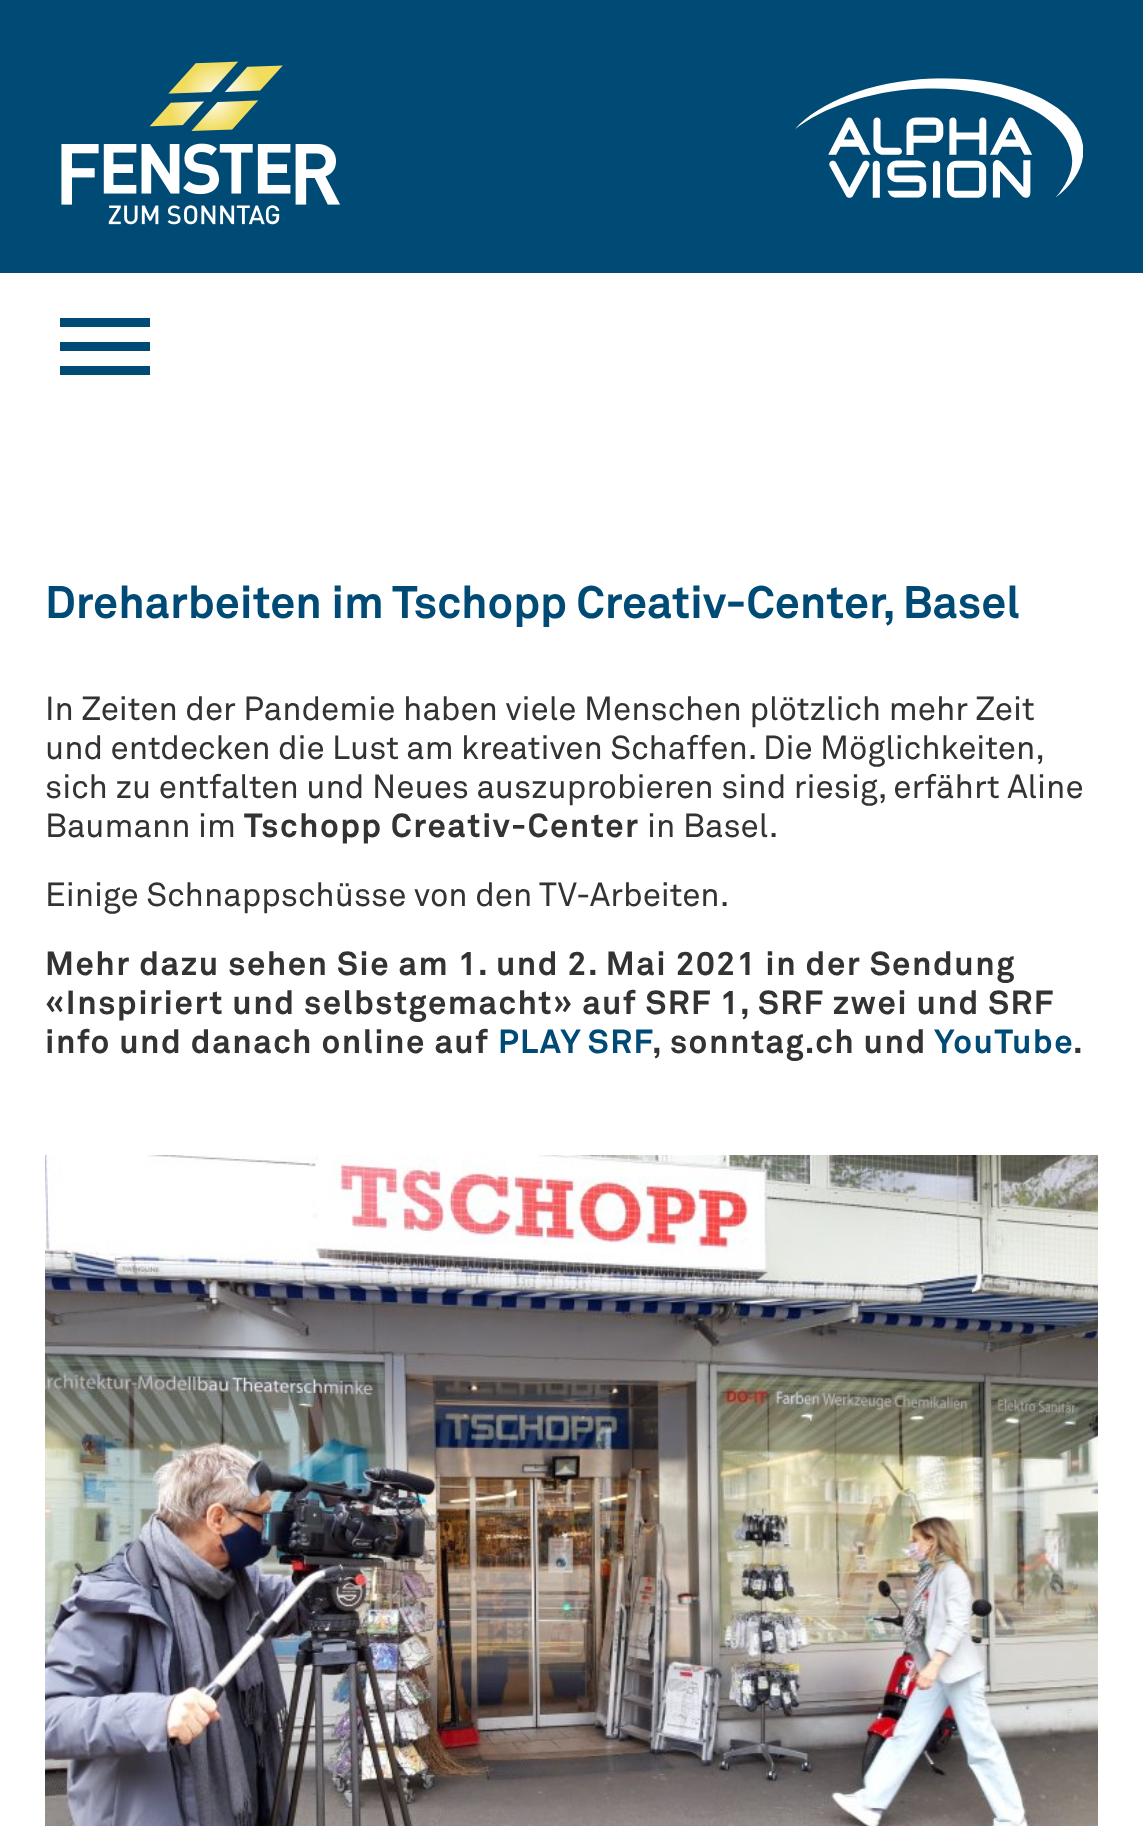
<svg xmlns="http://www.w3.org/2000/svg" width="1143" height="1826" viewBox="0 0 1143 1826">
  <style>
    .t1 { font: bold 45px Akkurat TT; fill: #004b76; }
    .t2 { font: 33px Akkurat TT; fill: #333; }
    .t3 { font: bold 33px Akkurat TT; letter-spacing: 1.5px; fill: #333; }
    .t4 { font: bold 33px Akkurat TT; letter-spacing: 1.5px; fill: #004b76; }
  </style>
  <rect width="100%" height="100%" fill="#fff"/>
  <rect x="0" y="0" width="1143" height="273" fill="#004b76"/>
  <image x="61" y="61" width="279" height="164" href="images/1.png"/>
  <image x="795" y="78" width="288" height="120" href="images/2.png"/>
  <rect x="60" y="318" width="90" height="9" fill="#004b76"/>
  <rect x="60" y="342" width="90" height="9" fill="#004b76"/>
  <rect x="60" y="366" width="90" height="9" fill="#004b76"/>
  <text x="45" y="618" class="t1">Dreharbeiten im Tschopp Creativ-Center, Basel</text>
  <text x="45" y="720" class="t2">In Zeiten der Pandemie haben viele Menschen plötzlich mehr Zeit</text>
  <text x="45" y="759" word-spacing="-0.25" class="t2">und entdecken die Lust am kreativen Schaffen. Die Möglichkeiten,</text>
  <text x="45" y="798" class="t2">sich zu entfalten und Neues auszuprobieren sind riesig, erfährt Aline</text>
  <text x="45" y="837" class="t2">Baumann im</text>
  <text x="244" y="837" class="t3">Tschopp Creativ-Center</text>
  <text x="647" y="837" class="t2">in Basel.</text>
  <text x="45" y="906" class="t2">Einige Schnappschüsse von den TV-Arbeiten.</text>
  <text x="45" y="975" class="t3">Mehr dazu sehen Sie am 1. und 2. Mai 2021 in der Sendung</text>
  <text x="45" y="1014" class="t3">«Inspiriert und selbstgemacht» auf SRF 1, SRF zwei und SRF</text>
  <text x="45" y="1053" class="t3">info und danach online auf</text>
  <text x="498" y="1053" word-spacing="-2" class="t4">PLAY SRF</text>
  <text x="652" y="1053" class="t3">, sonntag.ch und</text>
  <text x="934" y="1053" class="t4">YouTube</text>
  <text x="1073" y="1053" class="t3">.</text>
  <image x="45" y="1155" width="1053" height="671" href="images/3.png"/>
</svg>
